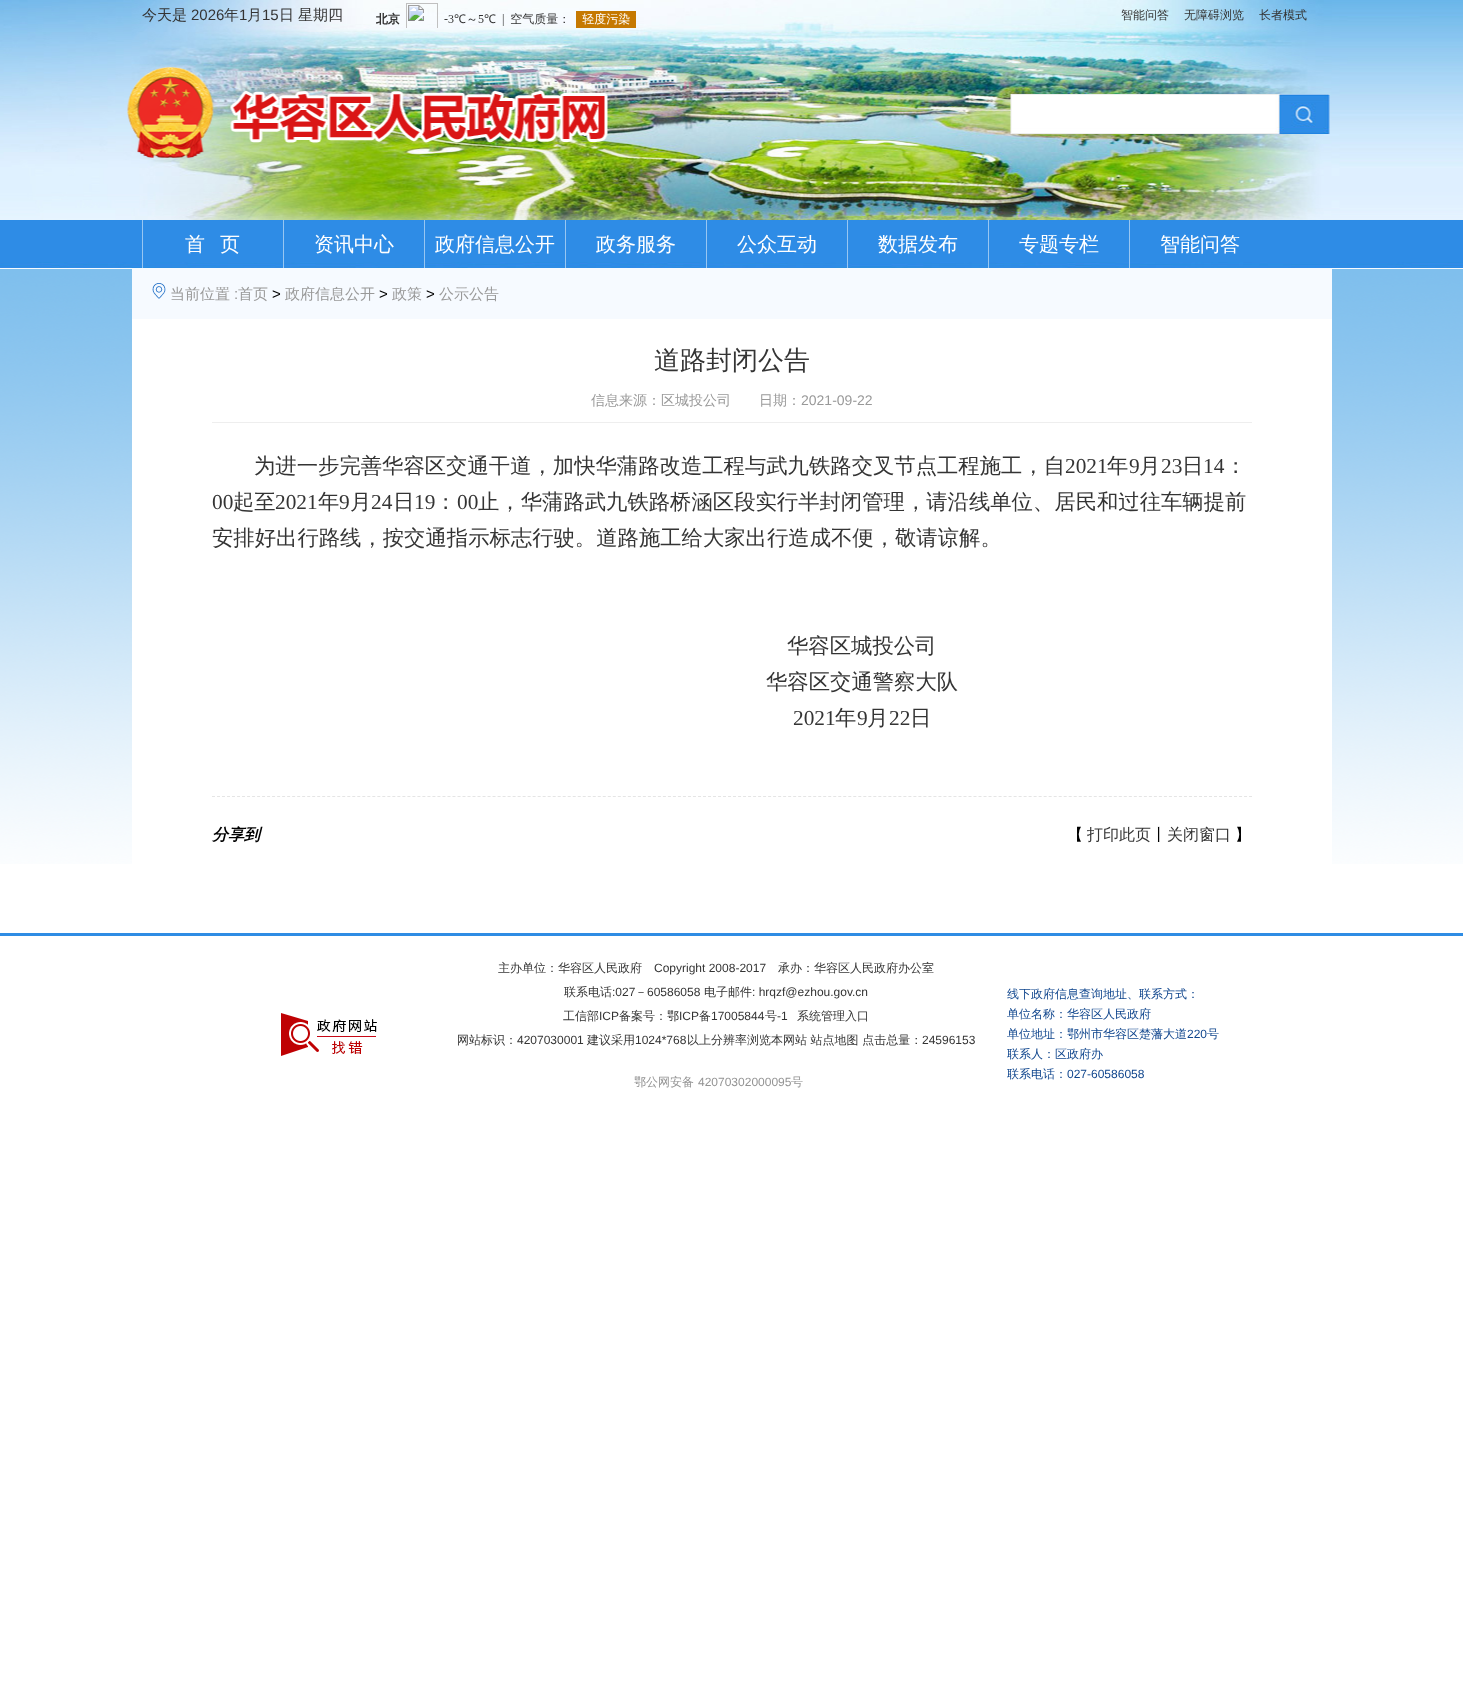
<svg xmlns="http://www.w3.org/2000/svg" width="1463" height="1706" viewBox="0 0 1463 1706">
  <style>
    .t1 { font: 500 15px WenQuanYi Zen Hei; fill: #343434; }
    .t2 { font: 15px Liberation Sans; fill: #343434; }
    .t3 { font: 500 12px WenQuanYi Zen Hei; fill: #343434; }
    .t4 { font: 500 20px WenQuanYi Zen Hei; fill: #fff; }
    .t5 { font: 500 15px WenQuanYi Zen Hei; fill: #999; }
    .t6 { font: 15px Liberation Sans; fill: #999; }
    .t7 { font: 15px Liberation Sans; fill: #000; }
    .t8 { font: 500 26px WenQuanYi Zen Hei; fill: #343434; }
    .t9 { font: 500 14px WenQuanYi Zen Hei; fill: #999; }
    .t10 { font: 14px Liberation Sans; fill: #999; }
    .t11 { font: 500 21.35px WenQuanYi Zen Hei; fill: #343434; }
    .t12 { font: 21.35px Liberation Serif; fill: #343434; }
    .t13 { font: italic bold 16px WenQuanYi Zen Hei; fill: #000; }
    .t14 { font: 500 16px WenQuanYi Zen Hei; fill: #000; }
    .t15 { font: 500 16px WenQuanYi Zen Hei; fill: #343434; }
    .t16 { font: 12px Liberation Sans; fill: #343434; }
    .t17 { font: 500 12px WenQuanYi Zen Hei; fill: #939393; }
    .t18 { font: 12px Liberation Sans; fill: #939393; }
    .t19 { font: 500 12px WenQuanYi Zen Hei; fill: #0f458d; }
    .t20 { font: 12px Liberation Sans; fill: #0f458d; }
  </style>
  <rect width="100%" height="100%" fill="#fff"/>
  <image x="0" y="0" width="1463" height="269" href="images/1.png"/>
  <image x="0" y="67" width="1463" height="797" href="images/2.png"/>
  <text x="142" y="20" class="t1">今天是</text>
  <text x="191" y="20" class="t2">2026</text>
  <text x="224" y="20" class="t1">年</text>
  <text x="239" y="20" class="t2">1</text>
  <text x="247" y="20" class="t1">月</text>
  <text x="262" y="20" class="t2">15</text>
  <text x="279" y="20" class="t1">日</text>
  <text x="298" y="20" class="t1">星期四</text>
  <image x="376" y="3" width="260" height="25" href="images/3.png"/>
  <text x="1121" y="19" class="t3">智能问答</text>
  <text x="1184" y="19" class="t3">无障碍浏览</text>
  <text x="1259" y="19" class="t3">长者模式</text>
  <rect x="142" y="220" width="1" height="48" fill="#97c6f2"/>
  <text x="185" y="251" class="t4">首</text>
  <text x="220" y="251" class="t4">页</text>
  <rect x="283" y="220" width="1" height="48" fill="#97c6f2"/>
  <text x="314" y="251" class="t4">资讯中心</text>
  <rect x="424" y="220" width="1" height="48" fill="#97c6f2"/>
  <text x="435" y="251" class="t4">政府信息公开</text>
  <rect x="565" y="220" width="1" height="48" fill="#97c6f2"/>
  <text x="596" y="251" class="t4">政务服务</text>
  <rect x="706" y="220" width="1" height="48" fill="#97c6f2"/>
  <text x="737" y="251" class="t4">公众互动</text>
  <rect x="847" y="220" width="1" height="48" fill="#97c6f2"/>
  <text x="878" y="251" class="t4">数据发布</text>
  <rect x="988" y="220" width="1" height="48" fill="#97c6f2"/>
  <text x="1019" y="251" class="t4">专题专栏</text>
  <rect x="1129" y="220" width="1" height="48" fill="#97c6f2"/>
  <text x="1160" y="251" class="t4">智能问答</text>
  <rect x="132" y="269" width="1200" height="50" fill="#f6faff"/>
  <image x="152" y="283" width="14" height="16" href="images/4.png"/>
  <text x="170" y="299" class="t5">当前位置</text>
  <text x="234" y="299" class="t6">:</text>
  <text x="238" y="299" class="t5">首页</text>
  <text x="272" y="299" class="t7">&gt;</text>
  <text x="285" y="299" class="t5">政府信息公开</text>
  <text x="379" y="299" class="t7">&gt;</text>
  <text x="392" y="299" class="t5">政策</text>
  <text x="426" y="299" class="t7">&gt;</text>
  <text x="439" y="299" class="t5">公示公告</text>
  <rect x="132" y="319" width="1200" height="545" fill="#fff"/>
  <rect x="212" y="422" width="1040" height="1" fill="#eee"/>
  <text x="654" y="369" class="t8">道路封闭公告</text>
  <text x="591" y="405" class="t9">信息来源：区城投公司</text>
  <text x="759" y="405" class="t9">日期：</text>
  <text x="801" y="405" class="t10">2021-09-22</text>
  <text x="254" y="473" class="t11">为进一步完善华容区交通干道，加快华蒲路改造工程与武九铁路交叉节点工程施工，自</text>
  <text x="1065" y="473" class="t12">2021</text>
  <text x="1107" y="473" class="t11">年</text>
  <text x="1129" y="473" class="t12">9</text>
  <text x="1139" y="473" class="t11">月</text>
  <text x="1161" y="473" class="t12">23</text>
  <text x="1182" y="473" class="t11">日</text>
  <text x="1203" y="473" class="t12">14</text>
  <text x="1225" y="473" class="t11">：</text>
  <text x="212" y="509" class="t12">00</text>
  <text x="233" y="509" class="t11">起至</text>
  <text x="275" y="509" class="t12">2021</text>
  <text x="318" y="509" class="t11">年</text>
  <text x="339" y="509" class="t12">9</text>
  <text x="350" y="509" class="t11">月</text>
  <text x="371" y="509" class="t12">24</text>
  <text x="393" y="509" class="t11">日</text>
  <text x="414" y="509" class="t12">19</text>
  <text x="435" y="509" class="t11">：</text>
  <text x="457" y="509" class="t12">00</text>
  <text x="478" y="509" class="t11">止，华蒲路武九铁路桥涵区段实行半封闭管理，请沿线单位、居民和过往车辆提前</text>
  <text x="212" y="545" class="t11">安排好出行路线，按交通指示标志行驶。道路施工给大家出行造成不便，敬请谅解。</text>
  <text x="787" y="653" class="t11">华容区城投公司</text>
  <text x="766" y="689" class="t11">华容区交通警察大队</text>
  <text x="793" y="725" class="t12">2021</text>
  <text x="835" y="725" class="t11">年</text>
  <text x="857" y="725" class="t12">9</text>
  <text x="867" y="725" class="t11">月</text>
  <text x="889" y="725" class="t12">22</text>
  <text x="910" y="725" class="t11">日</text>
  <path d="M212 796.5H1252" fill="none" stroke="#e5e5e5" stroke-dasharray="3 2.01"/>
  <text x="212" y="840" class="t13">分享到</text>
  <text x="1067" y="840" class="t14">【</text>
  <text x="1087" y="840" class="t15">打印此页</text>
  <text x="1151" y="840" class="t14">丨</text>
  <text x="1167" y="840" class="t15">关闭窗口</text>
  <text x="1235" y="840" class="t14">】</text>
  <rect x="0" y="933" width="1463" height="3" fill="#2e8ce4"/>
  <image x="281" y="1013" width="96" height="43" href="images/5.png"/>
  <text x="498" y="972" class="t3">主办单位：华容区人民政府</text>
  <text x="654" y="972" class="t16">Copyright 2008-2017</text>
  <text x="778" y="972" class="t3">承办：华容区人民政府办公室</text>
  <text x="564" y="996" class="t3">联系电话</text>
  <text x="612" y="996" class="t16">:027</text>
  <text x="635" y="996" class="t3">－</text>
  <text x="647" y="996" class="t16">60586058</text>
  <text x="704" y="996" class="t3">电子邮件</text>
  <text x="752" y="996" class="t16">: hrqzf@ezhou.gov.cn</text>
  <text x="563" y="1020" class="t3">工信部</text>
  <text x="599" y="1020" class="t16">ICP</text>
  <text x="619" y="1020" class="t3">备案号：鄂</text>
  <text x="679" y="1020" class="t16">ICP</text>
  <text x="699" y="1020" class="t3">备</text>
  <text x="711" y="1020" class="t16">17005844</text>
  <text x="765" y="1020" class="t3">号</text>
  <text x="777" y="1020" class="t16">-1</text>
  <text x="797" y="1020" class="t3">系统管理入口</text>
  <text x="457" y="1044" class="t3">网站标识：</text>
  <text x="517" y="1044" class="t16">4207030001</text>
  <text x="587" y="1044" class="t3">建议采用</text>
  <text x="635" y="1044" class="t16">1024*768</text>
  <text x="687" y="1044" class="t3">以上分辨率浏览本网站 站点地图 点击总量：</text>
  <text x="922" y="1044" class="t16">24596153</text>
  <text x="634" y="1086" class="t17">鄂公网安备</text>
  <text x="698" y="1086" class="t18">42070302000095</text>
  <text x="791" y="1086" class="t17">号</text>
  <text x="1007" y="998" class="t19">线下政府信息查询地址、联系方式：</text>
  <text x="1007" y="1018" class="t19">单位名称：华容区人民政府</text>
  <text x="1007" y="1038" class="t19">单位地址：鄂州市华容区楚藩大道</text>
  <text x="1187" y="1038" class="t20">220</text>
  <text x="1207" y="1038" class="t19">号</text>
  <text x="1007" y="1058" class="t19">联系人：区政府办</text>
  <text x="1007" y="1078" class="t19">联系电话：</text>
  <text x="1067" y="1078" class="t20">027-60586058</text>
</svg>
